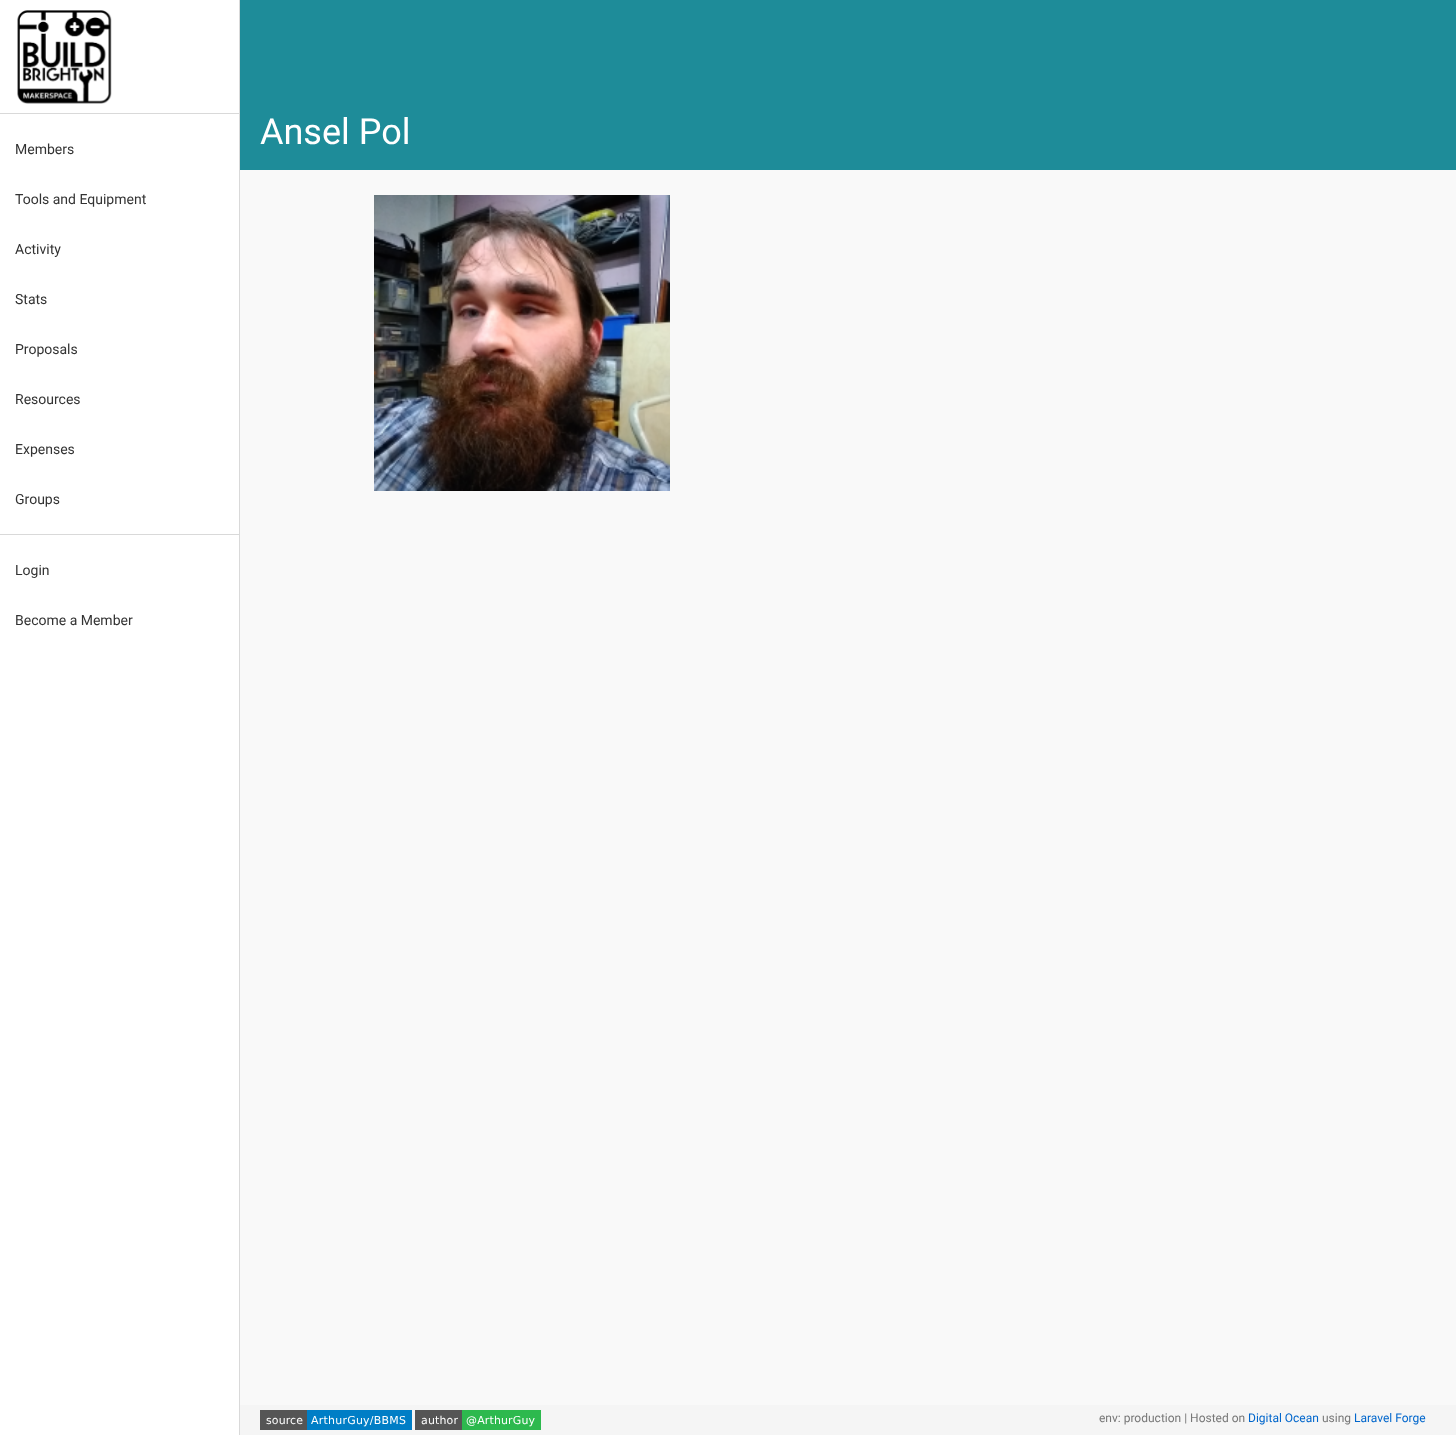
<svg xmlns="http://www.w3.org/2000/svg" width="1456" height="1435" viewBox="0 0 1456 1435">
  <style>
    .t1 { font: 14px Roboto; fill: #333; }
    .t2 { font: 36px Roboto; fill: #fff; }
    .t3 { font: 12px Roboto; fill: #777; }
    .t4 { font: 12px Roboto; fill: #06c; }
  </style>
  <rect width="100%" height="100%" fill="#f9f9f9"/>
  <rect x="0" y="0" width="239" height="1435" fill="#fff"/>
  <rect x="239" y="0" width="1" height="1435" fill="#d9d9d9"/>
  <rect x="0" y="113" width="239" height="1" fill="#d9d9d9"/>
  <image x="17" y="10" width="95" height="94" href="images/1.png"/>
  <text x="15" y="154" class="t1">Members</text>
  <text x="15" y="204" class="t1">Tools and Equipment</text>
  <text x="15" y="254" class="t1">Activity</text>
  <text x="15" y="304" class="t1">Stats</text>
  <text x="15" y="354" class="t1">Proposals</text>
  <text x="15" y="404" class="t1">Resources</text>
  <text x="15" y="454" class="t1">Expenses</text>
  <text x="15" y="504" class="t1">Groups</text>
  <rect x="0" y="534" width="239" height="1" fill="#d9d9d9"/>
  <text x="15" y="575" class="t1">Login</text>
  <text x="15" y="625" class="t1">Become a Member</text>
  <rect x="240" y="0" width="1216" height="170" fill="#1e8c99"/>
  <text x="260" y="144" class="t2">Ansel Pol</text>
  <image x="374" y="195" width="296" height="296" href="images/2.png"/>
  <rect x="240" y="1405" width="1216" height="30" fill="#f5f5f5"/>
  <image x="260" y="1410" width="152" height="20" href="images/3.png"/>
  <image x="415" y="1410" width="126" height="20" href="images/4.png"/>
  <text x="1099" y="1422" class="t3">env: production | Hosted on</text>
  <text x="1248" y="1422" class="t4">Digital Ocean</text>
  <text x="1322" y="1422" class="t3">using</text>
  <text x="1354" y="1422" class="t4">Laravel Forge</text>
</svg>
